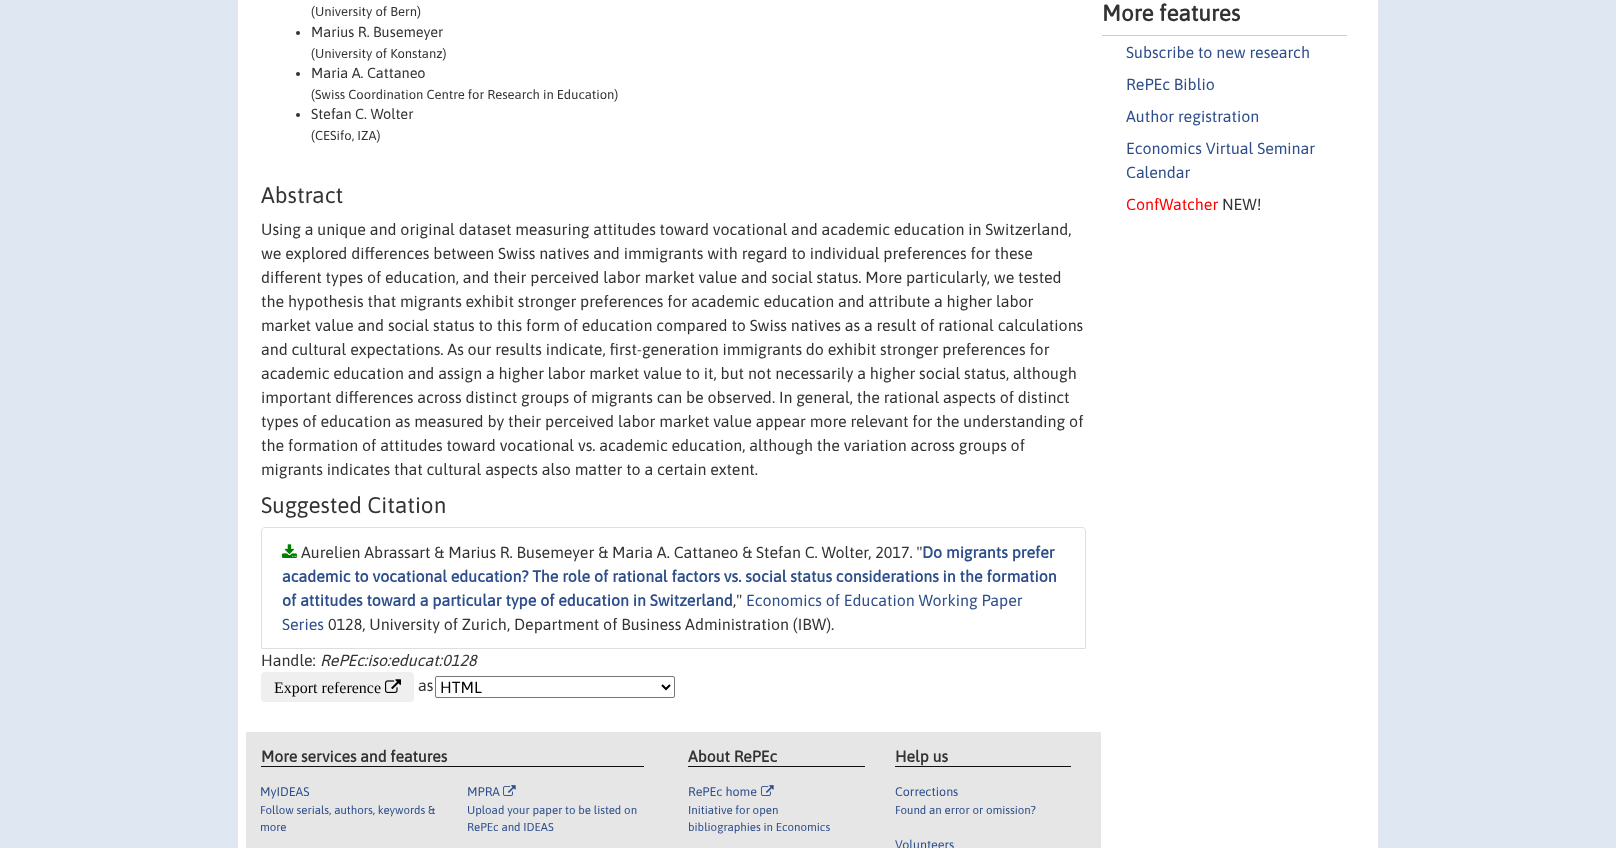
<svg xmlns="http://www.w3.org/2000/svg" width="1616" height="848" viewBox="0 0 1616 848">
  <style>
    .t1 { font: 13px Asap; fill: #333; }
    .t2 { font: 14.5px Asap; fill: #333; }
    .t3 { font: 22.5px Asap; fill: #333; }
    .t4 { font: 16px Asap; fill: #333; }
    .t5 { font: bold 16px Asap; fill: #2d4e8b; }
    .t6 { font: 16px Asap; fill: #2d4e8b; }
    .t7 { font: italic 16px Asap; fill: #333; }
    .t8 { font: 16px Liberation Serif; fill: #000; }
    .t9 { font: 16px Asap; fill: #000; }
    .t10 { font: bold 15.8px Asap; fill: #333; }
    .t11 { font: 12.5px Asap; fill: #2d4e8b; }
    .t12 { font: 11.5px Asap; fill: #2d4e8b; }
    .t13 { font: bold 22.5px Asap; fill: #333; }
    .t14 { font: 16px Asap; fill: #f00; }
  </style>
  <rect width="100%" height="100%" fill="#dfe7f2"/>
  <rect x="238" y="0" width="1140" height="848" fill="#fff"/>
  <text x="311" y="16" class="t1">(University of Bern)</text>
  <circle cx="298" cy="33" r="2" fill="#333"/>
  <text x="311" y="37" class="t2">Marius R. Busemeyer</text>
  <text x="311" y="58" class="t1">(University of Konstanz)</text>
  <circle cx="298" cy="74" r="2" fill="#333"/>
  <text x="311" y="78" class="t2">Maria A. Cattaneo</text>
  <text x="311" y="99" class="t1">(Swiss Coordination Centre for Research in Education)</text>
  <circle cx="298" cy="115" r="2" fill="#333"/>
  <text x="311" y="119" class="t2">Stefan C. Wolter</text>
  <text x="311" y="140" class="t1">(CESifo, IZA)</text>
  <text x="261" y="203" class="t3">Abstract</text>
  <text x="261" y="235" class="t4">Using a unique and original dataset measuring attitudes toward vocational and academic education in Switzerland,</text>
  <text x="261" y="259" class="t4">we explored differences between Swiss natives and immigrants with regard to individual preferences for these</text>
  <text x="261" y="283" class="t4">different types of education, and their perceived labor market value and social status. More particularly, we tested</text>
  <text x="261" y="307" class="t4">the hypothesis that migrants exhibit stronger preferences for academic education and attribute a higher labor</text>
  <text x="261" y="331" class="t4">market value and social status to this form of education compared to Swiss natives as a result of rational calculations</text>
  <text x="261" y="355" class="t4">and cultural expectations. As our results indicate, first-generation immigrants do exhibit stronger preferences for</text>
  <text x="261" y="379" class="t4">academic education and assign a higher labor market value to it, but not necessarily a higher social status, although</text>
  <text x="261" y="403" class="t4">important differences across distinct groups of migrants can be observed. In general, the rational aspects of distinct</text>
  <text x="261" y="427" class="t4">types of education as measured by their perceived labor market value appear more relevant for the understanding of</text>
  <text x="261" y="451" class="t4">the formation of attitudes toward vocational vs. academic education, although the variation across groups of</text>
  <text x="261" y="475" class="t4">migrants indicates that cultural aspects also matter to a certain extent.</text>
  <text x="261" y="513" class="t3">Suggested Citation</text>
  <path d="M265 527.5H1082C1084 527.5 1085.5 529 1085.5 531V648.5H261.5V531C261.5 529 263 527.5 265 527.5Z" fill="none" stroke="#dfdfdf"/>
  <image x="282" y="544" width="15" height="14" href="images/1.png"/>
  <text x="301" y="558" class="t4">Aurelien Abrassart &amp; Marius R. Busemeyer &amp; Maria A. Cattaneo &amp; Stefan C. Wolter, 2017. "</text>
  <text x="922" y="558" class="t5">Do migrants prefer</text>
  <text x="282" y="582" class="t5">academic to vocational education? The role of rational factors vs. social status considerations in the formation</text>
  <text x="282" y="606" class="t5">of attitudes toward a particular type of education in Switzerland</text>
  <text x="733" y="606" class="t4">,"</text>
  <text x="746" y="606" class="t6">Economics of Education Working Paper</text>
  <text x="282" y="630" class="t6">Series</text>
  <text x="328" y="630" class="t4">0128, University of Zurich, Department of Business Administration (IBW).</text>
  <text x="261" y="666" class="t4">Handle:</text>
  <text x="320" y="666" class="t7">RePEc:iso:educat:0128</text>
  <rect x="261" y="672" width="153" height="30" rx="4" fill="#efefef"/>
  <text x="274" y="693" class="t8">Export reference</text>
  <image x="385" y="679" width="16" height="14" href="images/2.png"/>
  <text x="418" y="691" class="t4">as</text>
  <rect x="435.5" y="676.5" width="239" height="21" rx="1.5" fill="none" stroke="#767676"/>
  <path d="M662 685L666 689L670 685" fill="none" stroke="#000" stroke-width="2"/>
  <text x="440" y="693" class="t9">HTML</text>
  <rect x="246" y="732" width="855" height="116" fill="#e6e6e6"/>
  <rect x="261" y="766" width="383" height="1" fill="#111"/>
  <text x="261" y="762" class="t10">More services and features</text>
  <text x="260" y="796" class="t11">MyIDEAS</text>
  <text x="260" y="814" class="t12">Follow serials, authors, keywords &amp;</text>
  <text x="260" y="831" class="t12">more</text>
  <text x="467" y="796" class="t11">MPRA</text>
  <image x="503" y="785" width="13" height="11" href="images/3.png"/>
  <text x="467" y="814" class="t12">Upload your paper to be listed on</text>
  <text x="467" y="831" class="t12">RePEc and IDEAS</text>
  <rect x="688" y="766" width="177" height="1" fill="#111"/>
  <text x="688" y="762" class="t10">About RePEc</text>
  <text x="688" y="796" class="t11">RePEc home</text>
  <image x="761" y="785" width="13" height="11" href="images/3.png"/>
  <text x="688" y="814" class="t12">Initiative for open</text>
  <text x="688" y="831" class="t12">bibliographies in Economics</text>
  <rect x="895" y="766" width="176" height="1" fill="#111"/>
  <text x="895" y="762" class="t10">Help us</text>
  <text x="895" y="796" class="t11">Corrections</text>
  <text x="895" y="814" class="t12">Found an error or omission?</text>
  <text x="895" y="849" class="t11">Volunteers</text>
  <text x="1102" y="21" class="t13">More features</text>
  <rect x="1102" y="35" width="245" height="1" fill="#ccc"/>
  <text x="1126" y="58" class="t6">Subscribe to new research</text>
  <text x="1126" y="90" class="t6">RePEc Biblio</text>
  <text x="1126" y="122" class="t6">Author registration</text>
  <text x="1126" y="154" class="t6">Economics Virtual Seminar</text>
  <text x="1126" y="178" class="t6">Calendar</text>
  <text x="1126" y="210" class="t14">ConfWatcher</text>
  <text x="1222" y="210" class="t4">NEW!</text>
</svg>
